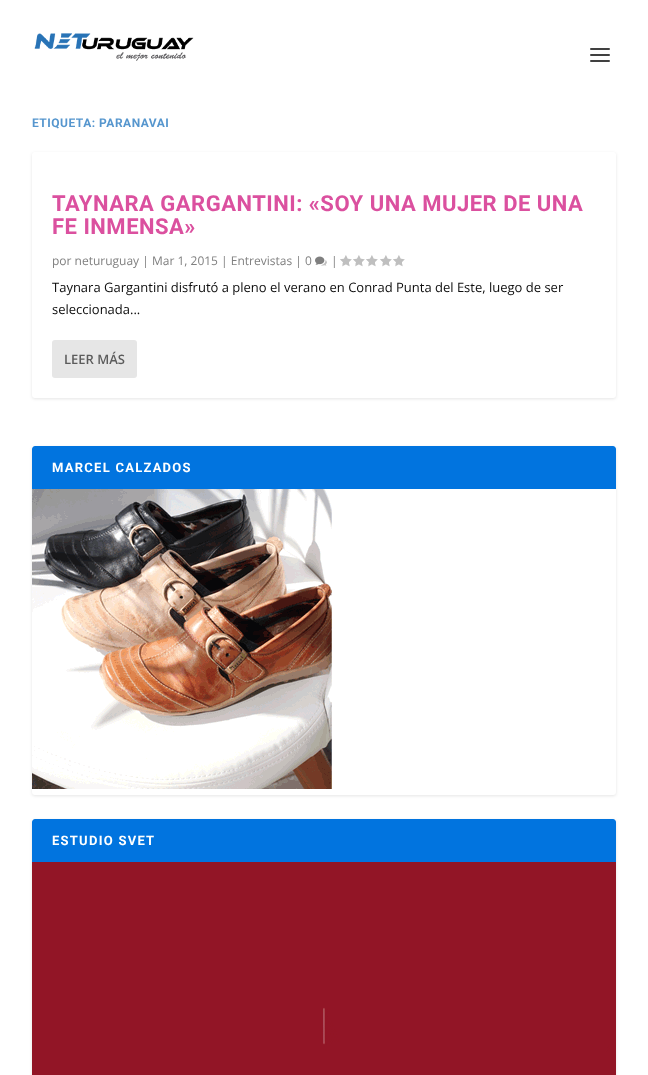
<svg xmlns="http://www.w3.org/2000/svg" width="648" height="1075" viewBox="0 0 648 1075">
  <style>
    .t1 { font: bold 12px Roboto; letter-spacing: 0.5px; fill: #5696ce; }
    .t2 { font: bold 22px Roboto; letter-spacing: 0.5px; fill: #db509f; }
    .t3 { font: 12px Open Sans; fill: #808080; }
    .t4 { font: 13px Open Sans; fill: #0d0d0d; }
    .t5 { font: 600 13px Open Sans; fill: #5c5c5c; }
    .t6 { font: bold 13px Roboto; letter-spacing: 1.25px; fill: #fff; }
  </style>
  <rect width="100%" height="100%" fill="#fff"/>
  <image x="34" y="33" width="160" height="28" href="images/1.png"/>
  <rect x="590" y="48" width="20" height="2" rx="1" fill="#404040"/>
  <rect x="590" y="54" width="20" height="2" rx="1" fill="#404040"/>
  <rect x="590" y="60" width="20" height="2" rx="1" fill="#404040"/>
  <text x="32" y="127" class="t1">ETIQUETA: PARANAVAI</text>
  <rect x="32" y="153" width="584" height="246" rx="3" fill="#0000001a" filter="blur(1.5px)"/>
  <rect x="32" y="152" width="584" height="246" rx="3" fill="#fff"/>
  <text x="52" y="211" class="t2">TAYNARA GARGANTINI: «SOY UNA MUJER DE UNA</text>
  <text x="52" y="234" class="t2">FE INMENSA»</text>
  <text x="52" y="265" class="t3">por neturuguay | Mar 1, 2015 | Entrevistas | 0</text>
  <image x="315" y="256" width="12" height="10" href="images/2.png"/>
  <text x="331" y="265" class="t3">|</text>
  <image x="340" y="255" width="12" height="12" href="images/3.png"/>
  <image x="353" y="255" width="12" height="12" href="images/3.png"/>
  <image x="366" y="255" width="12" height="12" href="images/3.png"/>
  <image x="380" y="255" width="12" height="12" href="images/3.png"/>
  <image x="393" y="255" width="12" height="12" href="images/3.png"/>
  <text x="52" y="292" class="t4">Taynara Gargantini disfrutó a pleno el verano en Conrad Punta del Este, luego de ser</text>
  <text x="52" y="314" class="t4">seleccionada...</text>
  <rect x="52" y="340" width="85" height="38" rx="3" fill="#e6e6e6"/>
  <text x="64" y="364" class="t5">LEER MÁS</text>
  <rect x="32" y="447" width="584" height="349" rx="3" fill="#0000001a" filter="blur(1.5px)"/>
  <rect x="32" y="446" width="584" height="349" rx="3" fill="#fff"/>
  <path d="M35 446H613C614.5 446 616 447.5 616 449V489H32V449C32 447.5 33.5 446 35 446Z" fill="#0174df"/>
  <text x="52" y="472" class="t6">MARCEL CALZADOS</text>
  <image x="32" y="489" width="300" height="300" href="images/4.png"/>
  <rect x="32" y="820" width="584" height="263" rx="3" fill="#0000001a" filter="blur(1.5px)"/>
  <path d="M35 819H613C614.5 819 616 820.5 616 822V862H32V822C32 820.5 33.5 819 35 819Z" fill="#0174df"/>
  <text x="52" y="845" class="t6">ESTUDIO SVET</text>
  <image x="32" y="862" width="584" height="213" href="images/5.png"/>
</svg>
